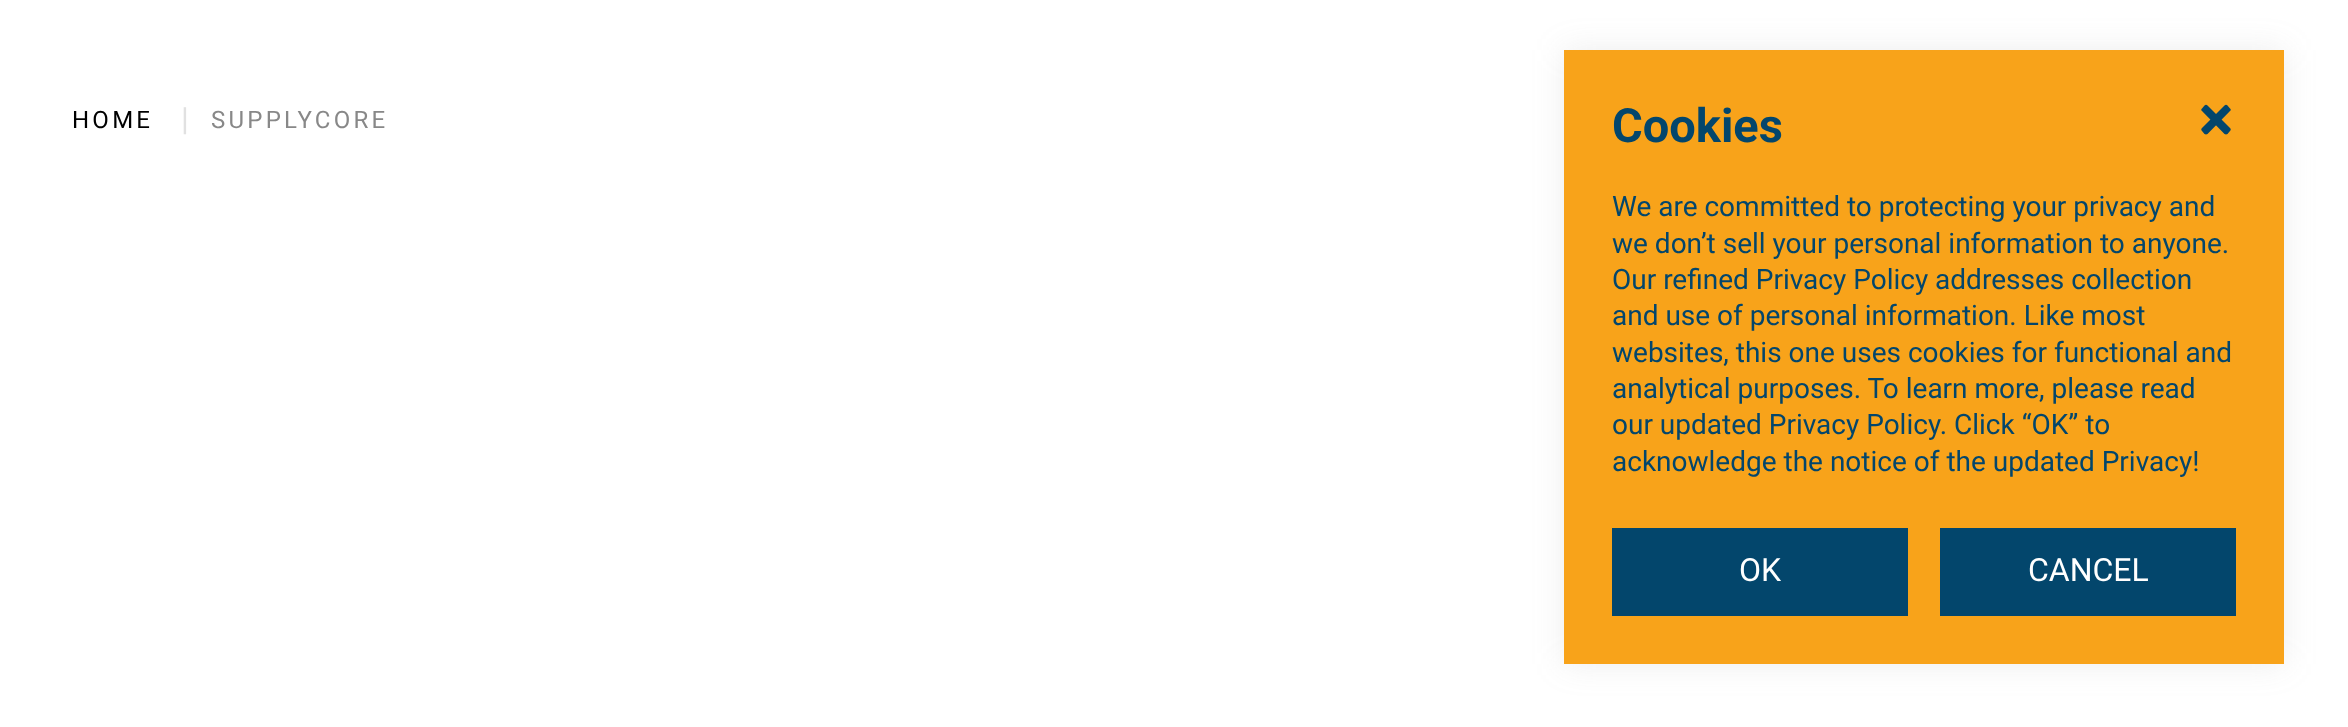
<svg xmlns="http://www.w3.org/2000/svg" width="2348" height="727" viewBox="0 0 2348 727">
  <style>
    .t1 { font: 24px Roboto; letter-spacing: 3.25px; fill: #000; }
    .t2 { font: 32px Roboto; letter-spacing: 3.25px; fill: #e1e1e1; }
    .t3 { font: 24px Roboto; letter-spacing: 3.25px; fill: #888; }
    .t4 { font: bold 47px Roboto; fill: #03466c; }
    .t5 { font: 28px Roboto; fill: #03466c; }
    .t6 { font: 32px Roboto; fill: #fff; }
  </style>
  <rect width="100%" height="100%" fill="#fff"/>
  <text x="72" y="128" class="t1">HOME</text>
  <text x="181" y="130" class="t2">|</text>
  <text x="211" y="128" class="t3">SUPPLYCORE</text>
  <rect x="1564" y="50" width="720" height="614" fill="#88888826" filter="blur(16px)"/>
  <rect x="1564" y="50" width="720" height="614" fill="#f8a31a"/>
  <text x="1612" y="142" class="t4">Cookies</text>
  <path d="M2202 128L2224.5 105.5C2225.5 104.5 2226.5 104.5 2227.5 105.5L2230 108.5C2231 109 2231 110.5 2230 111L2207.5 134C2206.5 134.5 2205.5 134.5 2204.5 134L2202 131C2201 130 2201 129 2202 128Z" fill="#03466c"/>
  <path d="M2207.5 105.5L2230 128C2231 129 2231 130 2230 131L2227.5 134C2226.5 134.5 2225.5 134.5 2224.5 134L2202 111C2201 110.5 2201 109 2202 108.5L2204.5 105.5C2205.5 104.5 2206.5 104.5 2207.5 105.5Z" fill="#03466c"/>
  <text x="1612" y="216" class="t5">We are committed to protecting your privacy and</text>
  <text x="1612" y="253" class="t5">we don’t sell your personal information to anyone.</text>
  <text x="1612" y="289" class="t5">Our refined Privacy Policy addresses collection</text>
  <text x="1612" y="325" class="t5">and use of personal information. Like most</text>
  <text x="1612" y="362" class="t5">websites, this one uses cookies for functional and</text>
  <text x="1612" y="398" class="t5">analytical purposes. To learn more, please read</text>
  <text x="1612" y="434" class="t5">our updated Privacy Policy. Click “OK” to</text>
  <text x="1612" y="471" class="t5">acknowledge the notice of the updated Privacy!</text>
  <rect x="1612" y="528" width="296" height="88" fill="#03466c"/>
  <text x="1739" y="581" class="t6">OK</text>
  <rect x="1940" y="528" width="296" height="88" fill="#03466c"/>
  <text x="2028" y="581" class="t6">CANCEL</text>
</svg>
